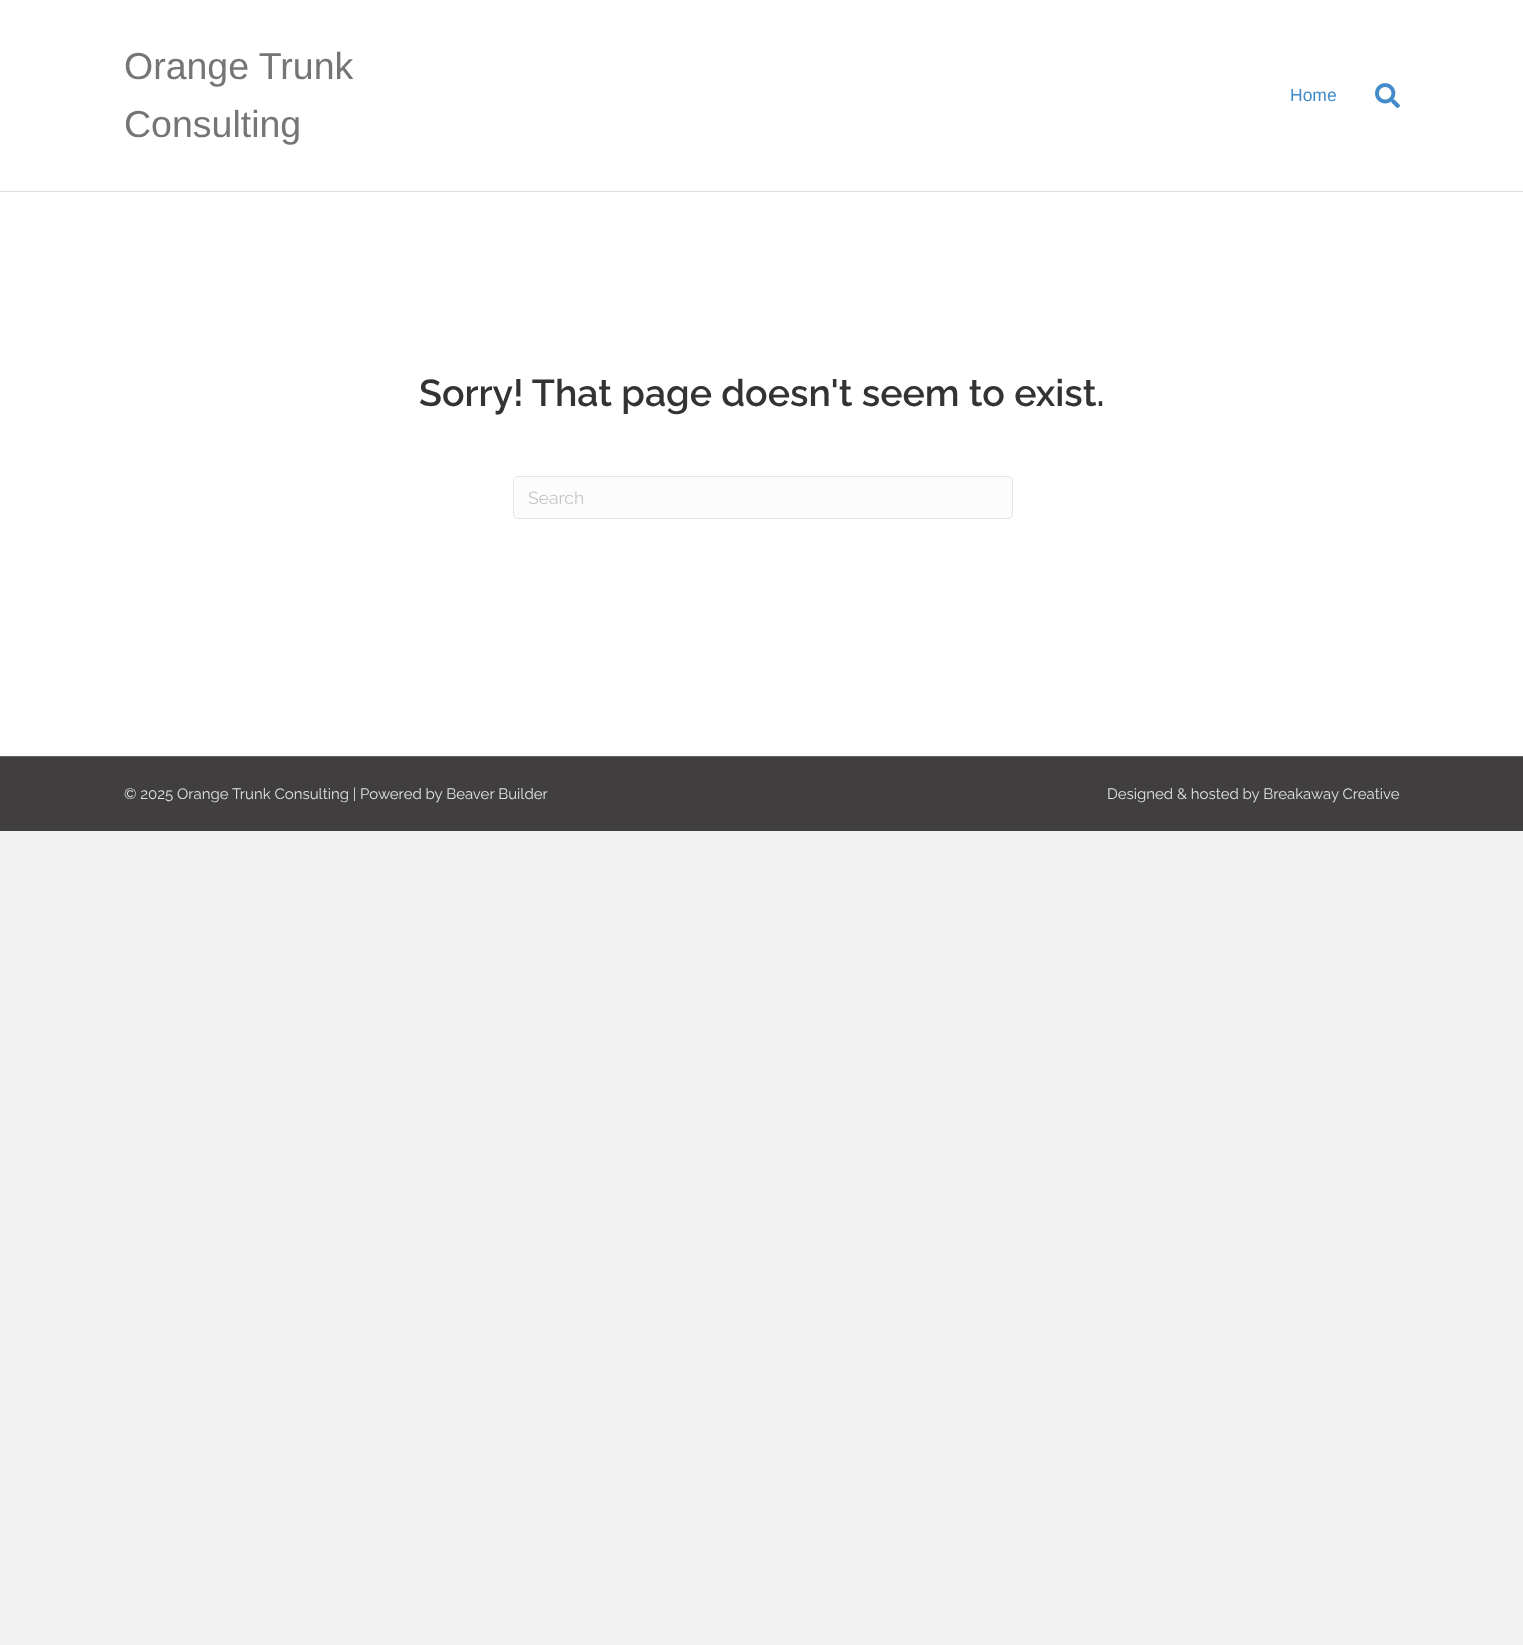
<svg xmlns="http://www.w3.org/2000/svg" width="1523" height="1645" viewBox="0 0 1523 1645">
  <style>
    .t1 { font: 37.5px Liberation Sans; fill: #757575; }
    .t2 { font: 17.5px Liberation Sans; fill: #428bca; }
    .t3 { font: 600 37.5px Raleway; fill: #333; }
    .t4 { font: 17.5px Raleway; fill: #c6c6c6; }
    .t5 { font: 15px Raleway; fill: #e0e0e0; }
  </style>
  <rect width="100%" height="100%" fill="#f2f2f2"/>
  <rect x="0" y="0" width="1523" height="756" fill="#fff"/>
  <rect x="0" y="191" width="1523" height="1" fill="#dedede"/>
  <text x="124" y="79" class="t1">Orange Trunk</text>
  <text x="124" y="137" class="t1">Consulting</text>
  <text x="1290" y="101" class="t2">Home</text>
  <image x="1375" y="83" width="25" height="26" href="images/1.png"/>
  <text x="419" y="406" class="t3">Sorry! That page doesn't seem to exist.</text>
  <rect x="513.5" y="476.5" width="499" height="42" rx="4.5" fill="#fcfcfc" stroke="#e6e6e6"/>
  <text x="528" y="504" class="t4">Search</text>
  <rect x="0" y="757" width="1523" height="74" fill="#403e3f"/>
  <rect x="0" y="756" width="1523" height="1" fill="#625f60"/>
  <text x="124" y="799" class="t5">© 2025 Orange Trunk Consulting | Powered by Beaver Builder</text>
  <text x="1107" y="799" class="t5">Designed &amp; hosted by Breakaway Creative</text>
</svg>
